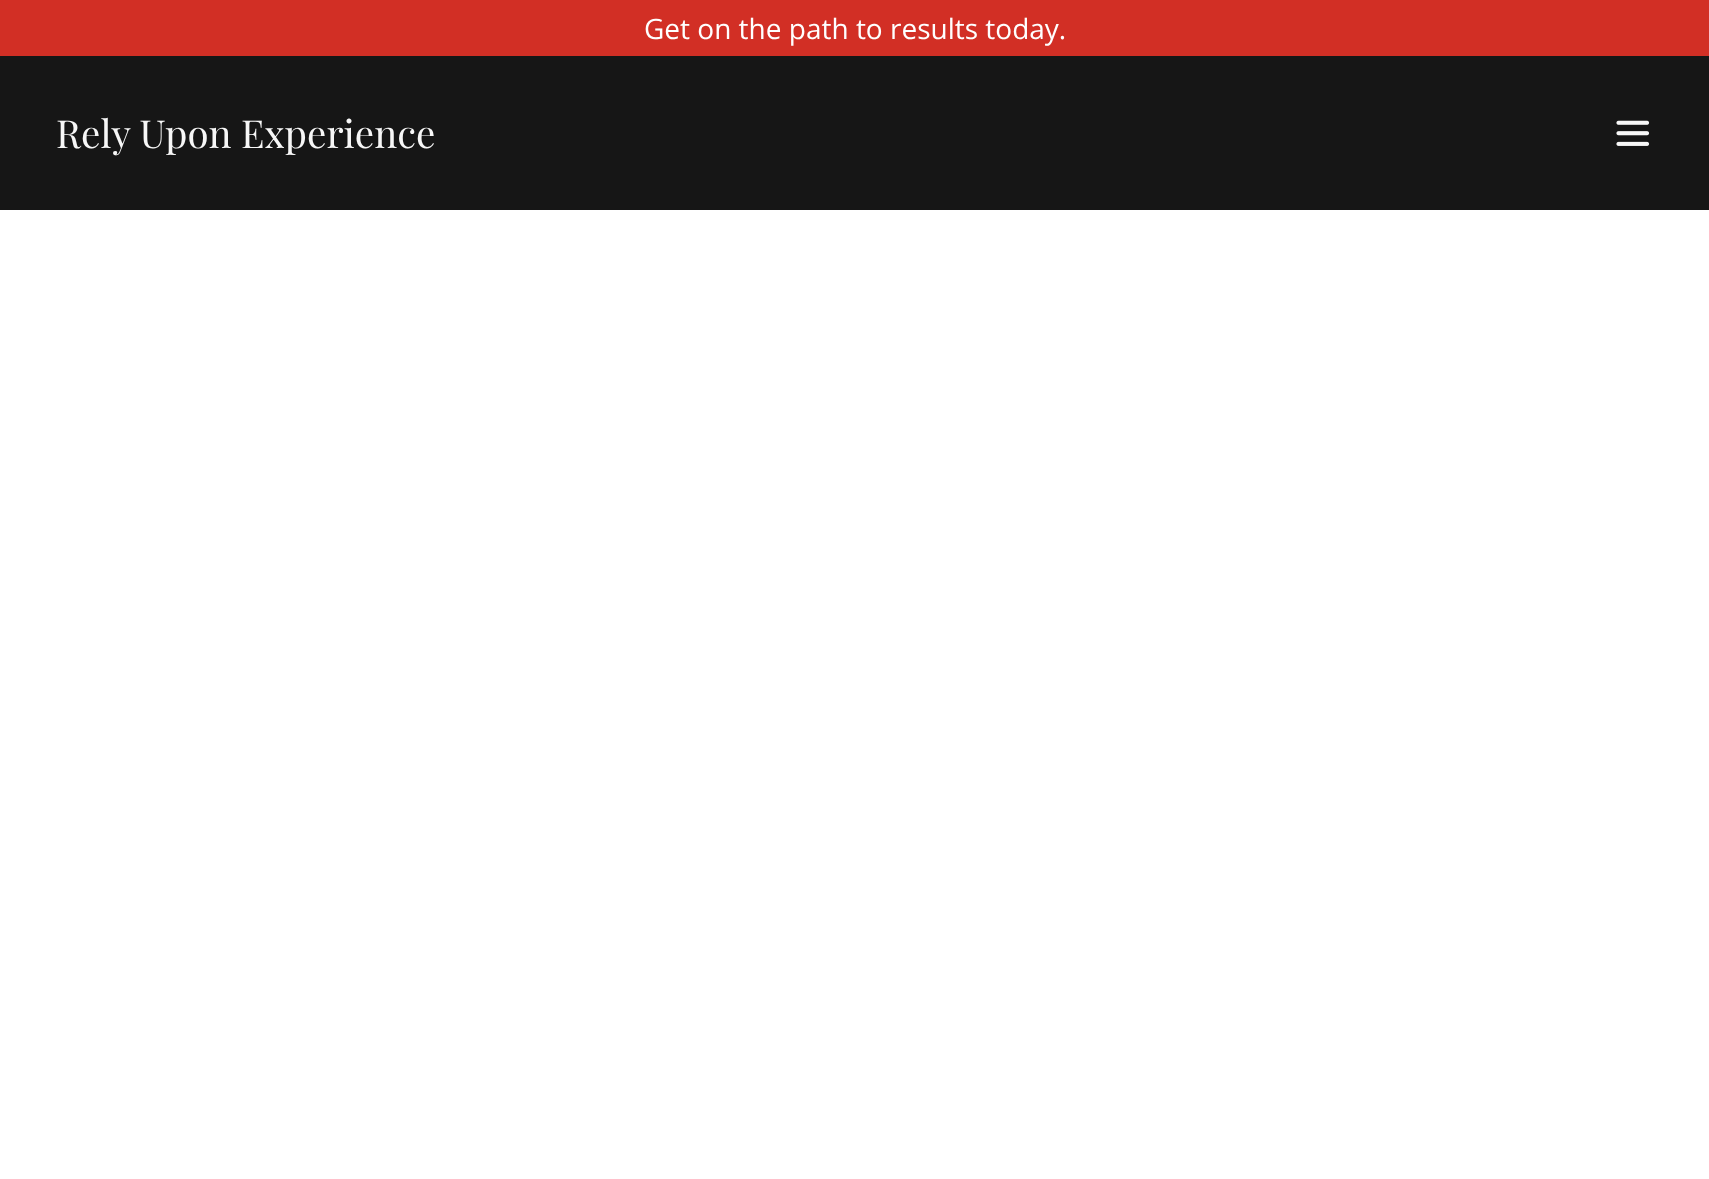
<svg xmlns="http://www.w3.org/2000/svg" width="1709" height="1179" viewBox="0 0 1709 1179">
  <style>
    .t1 { font: 28px Open Sans; fill: #fff; }
    .t2 { font: 38.5px Playfair Display; fill: #f7f7f7; }
  </style>
  <rect width="100%" height="100%" fill="#161616"/>
  <rect x="0" y="0" width="1709" height="56" fill="#d22f25"/>
  <text x="644" y="39" class="t1">Get on the path to results today.</text>
  <text x="56" y="148" class="t2">Rely Upon Experience</text>
  <image x="1616" y="120" width="34" height="26" href="images/1.png"/>
  <rect x="0" y="210" width="1709" height="969" fill="#fff"/>
</svg>
